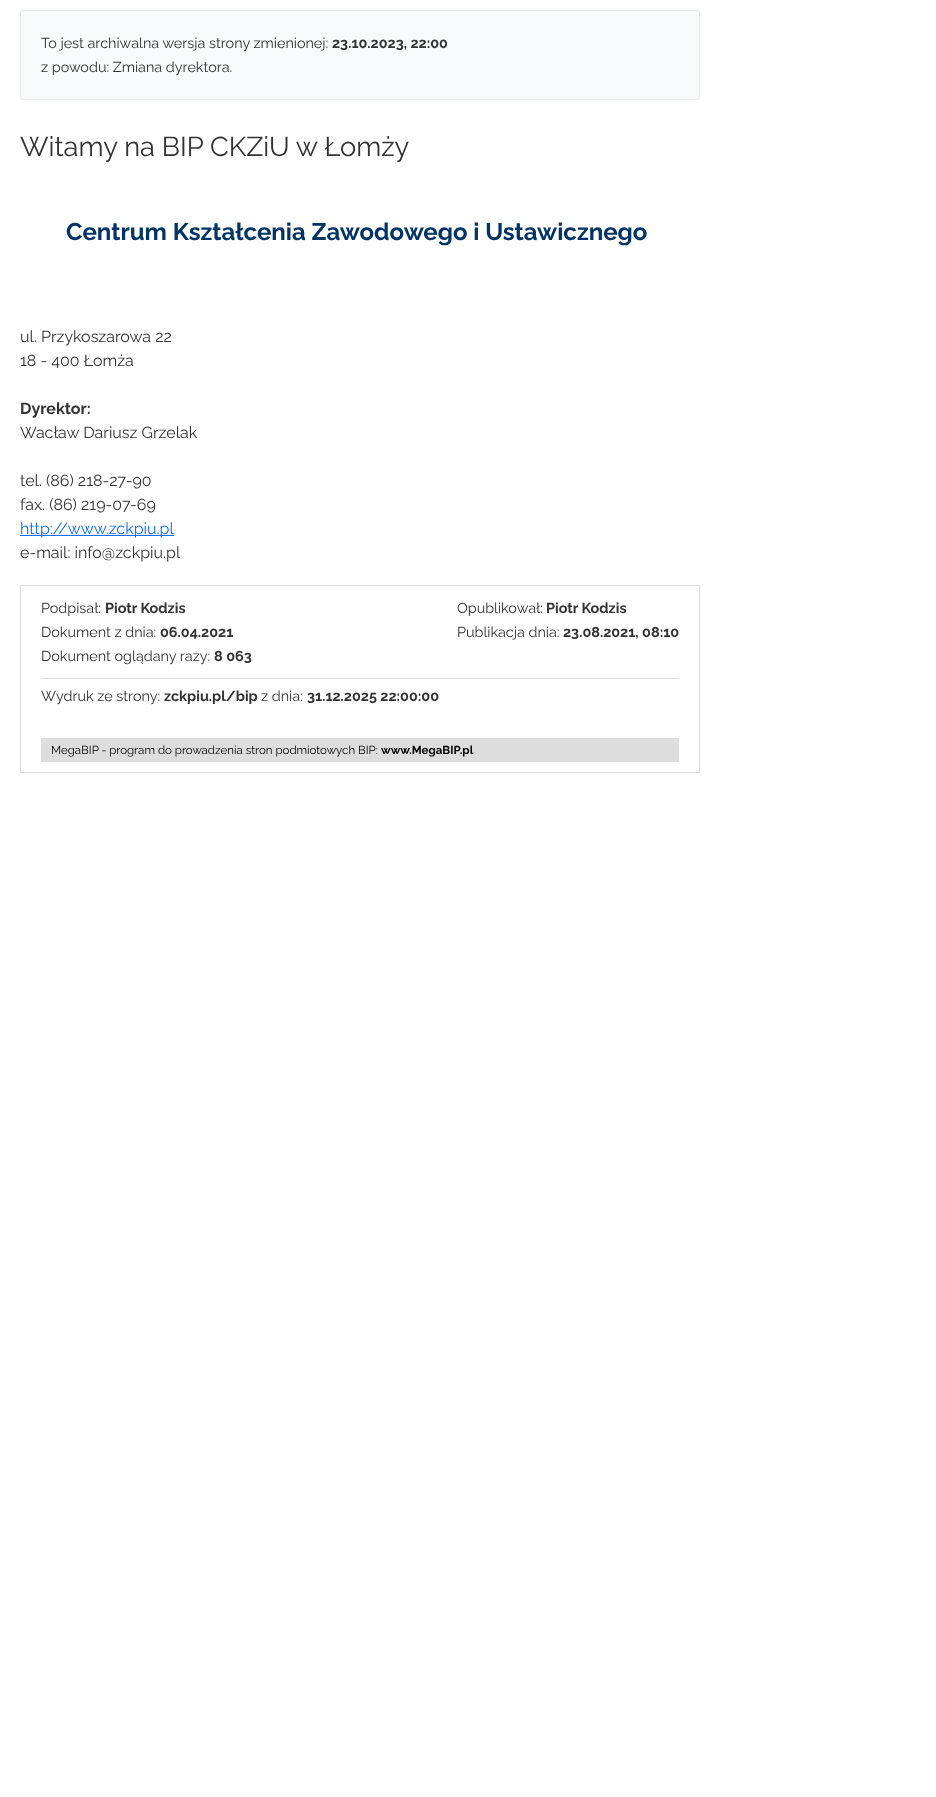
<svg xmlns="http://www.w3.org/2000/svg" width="936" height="1797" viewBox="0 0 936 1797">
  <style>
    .t1 { font: 14.4px Raleway; fill: #333; }
    .t2 { font: bold 14.4px Raleway; fill: #333; }
    .t3 { font: 27.25px Raleway; fill: #333; }
    .t4 { font: bold 24px Raleway; fill: #036; }
    .t5 { font: 16px Raleway; fill: #333; }
    .t6 { font: bold 16px Raleway; fill: #333; }
    .t7 { font: 16px Raleway; fill: #0d6efd; }
    .t8 { font: 11.5px Raleway; fill: #000; }
    .t9 { font: bold 11.5px Raleway; fill: #000; }
  </style>
  <rect width="100%" height="100%" fill="#fff"/>
  <rect x="20.5" y="10.5" width="679" height="89" rx="2.5" fill="#f8f9fa" stroke="#e9e9e9"/>
  <text x="41" y="48" class="t1">To jest archiwalna wersja strony zmienionej:</text>
  <text x="332" y="48" class="t2">23.10.2023, 22:00</text>
  <text x="41" y="72" class="t1">z powodu: Zmiana dyrektora.</text>
  <text x="20" y="156" class="t3">Witamy na BIP CKZiU w Łomży</text>
  <text x="66" y="240" class="t4">Centrum Kształcenia Zawodowego i Ustawicznego</text>
  <text x="20" y="342" class="t5">ul. Przykoszarowa 22</text>
  <text x="20" y="366" class="t5">18 - 400 Łomża</text>
  <text x="20" y="414" class="t6">Dyrektor:</text>
  <text x="20" y="438" class="t5">Wacław Dariusz Grzelak</text>
  <text x="20" y="486" class="t5">tel. (86) 218-27-90</text>
  <text x="20" y="510" class="t5">fax. (86) 219-07-69</text>
  <rect x="20" y="535" width="154" height="1" fill="#0d6efd"/>
  <text x="20" y="534" class="t7">http://www.zckpiu.pl</text>
  <text x="20" y="558" class="t5">e-mail: info@zckpiu.pl</text>
  <rect x="20.5" y="585.5" width="679" height="187" fill="none" stroke="#ddd"/>
  <text x="41" y="613" class="t1">Podpisał:</text>
  <text x="105" y="613" class="t2">Piotr Kodzis</text>
  <text x="41" y="637" class="t1">Dokument z dnia:</text>
  <text x="160" y="637" class="t2">06.04.2021</text>
  <text x="41" y="661" class="t1">Dokument oglądany razy:</text>
  <text x="214" y="661" class="t2">8 063</text>
  <text x="457" y="613" class="t1">Opublikował:</text>
  <text x="546" y="613" class="t2">Piotr Kodzis</text>
  <text x="457" y="637" class="t1">Publikacja dnia:</text>
  <text x="563" y="637" class="t2">23.08.2021, 08:10</text>
  <rect x="41" y="678" width="638" height="1" fill="#ddd"/>
  <text x="41" y="701" class="t1">Wydruk ze strony:</text>
  <text x="164" y="701" class="t2">zckpiu.pl/bip</text>
  <text x="261" y="701" class="t1">z dnia:</text>
  <text x="307" y="701" class="t2">31.12.2025 22:00:00</text>
  <rect x="41" y="738" width="638" height="24" fill="#ddd"/>
  <text x="51" y="754" class="t8">MegaBIP - program do prowadzenia stron podmiotowych BIP:</text>
  <text x="381" y="754" class="t9">www.MegaBIP.pl</text>
</svg>
